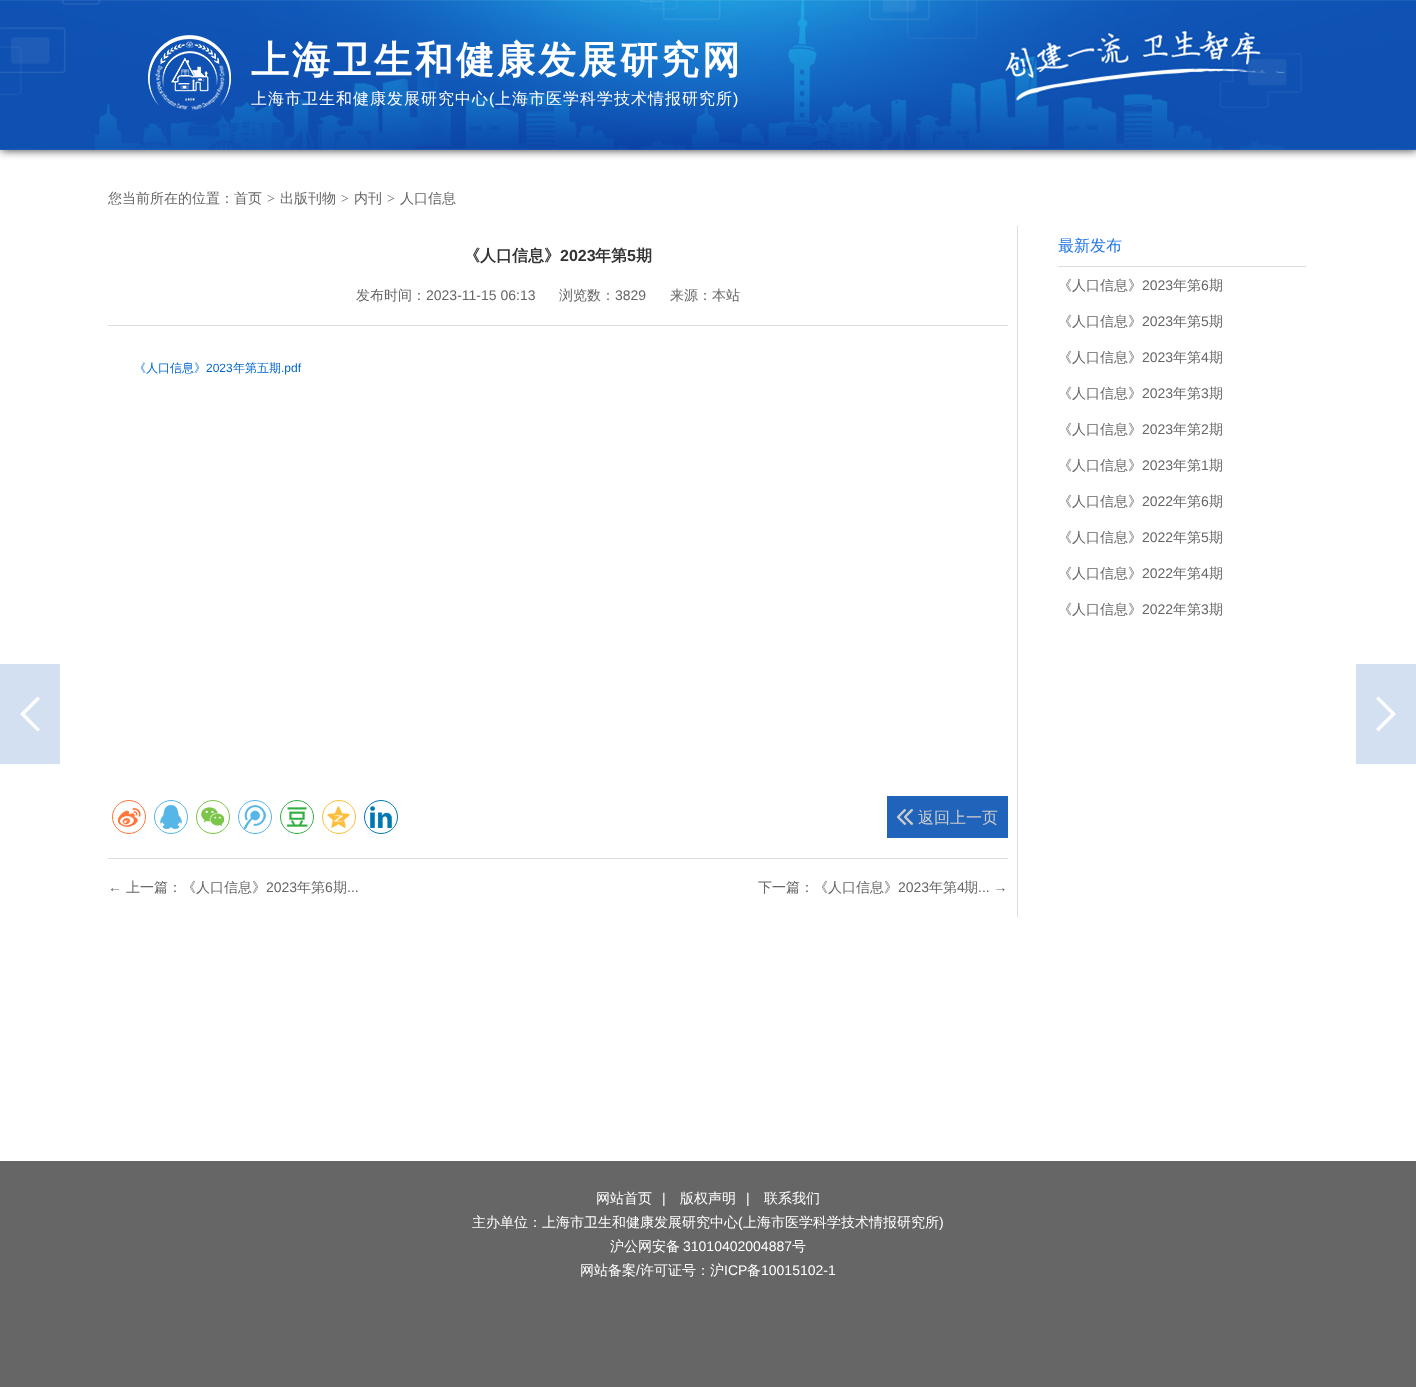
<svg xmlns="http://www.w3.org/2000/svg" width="1416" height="1387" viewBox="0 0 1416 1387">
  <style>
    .t1 { font: bold 38px WenQuanYi Zen Hei; letter-spacing: 3px; fill: #fff; }
    .t2 { font: 500 16px WenQuanYi Zen Hei; letter-spacing: 1px; fill: #fff; }
    .t3 { font: 16px Liberation Sans; letter-spacing: 1px; fill: #fff; }
    .t4 { font: 500 14px WenQuanYi Zen Hei; fill: #666; }
    .t5 { font: 14px Liberation Serif; fill: #666; }
    .t6 { font: bold 16px WenQuanYi Zen Hei; fill: #333; }
    .t7 { font: bold 16px Liberation Sans; fill: #333; }
    .t8 { font: 14px Liberation Sans; fill: #666; }
    .t9 { font: 500 12px WenQuanYi Zen Hei; fill: #06c; }
    .t10 { font: 12px Liberation Sans; fill: #06c; }
    .t11 { font: 500 16px WenQuanYi Zen Hei; fill: #ccc; }
    .t12 { font: 500 16px WenQuanYi Zen Hei; fill: #2277e6; }
    .t13 { font: 500 14px WenQuanYi Zen Hei; fill: #fff; }
    .t14 { font: 14px Liberation Sans; fill: #fff; }
  </style>
  <rect width="100%" height="100%" fill="#fff"/>
  <rect x="1" y="0" width="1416" height="150" fill="#333" filter="blur(5px)"/>
  <image x="0" y="0" width="1416" height="150" href="images/1.png"/>
  <image x="148" y="35" width="83" height="75" href="images/2.png"/>
  <text x="251" y="73" class="t1">上海卫生和健康发展研究网</text>
  <text x="251" y="104" class="t2">上海市卫生和健康发展研究中心</text>
  <text x="489" y="104" class="t3">(</text>
  <text x="495" y="104" class="t2">上海市医学科学技术情报研究所</text>
  <text x="733" y="104" class="t3">)</text>
  <text x="108" y="203" class="t4">您当前所在的位置：首页</text>
  <text x="267" y="203" class="t5">&gt;</text>
  <text x="280" y="203" class="t4">出版刊物</text>
  <text x="341" y="203" class="t5">&gt;</text>
  <text x="354" y="203" class="t4">内刊</text>
  <text x="387" y="203" class="t5">&gt;</text>
  <text x="400" y="203" class="t4">人口信息</text>
  <rect x="1017" y="226" width="1" height="691" fill="#ddd"/>
  <rect x="108" y="325" width="900" height="1" fill="#ddd"/>
  <text x="464" y="261" class="t6">《人口信息》</text>
  <text x="560" y="261" class="t7">2023</text>
  <text x="595" y="261" class="t6">年第</text>
  <text x="627" y="261" class="t7">5</text>
  <text x="636" y="261" class="t6">期</text>
  <text x="356" y="300" class="t4">发布时间：</text>
  <text x="426" y="300" class="t8">2023-11-15 06:13</text>
  <text x="559" y="300" class="t4">浏览数：</text>
  <text x="615" y="300" class="t8">3829</text>
  <text x="670" y="300" class="t4">来源：本站</text>
  <text x="134" y="372" class="t9">《人口信息》</text>
  <text x="206" y="372" class="t10">2023</text>
  <text x="233" y="372" class="t9">年第五期</text>
  <text x="281" y="372" class="t10">.pdf</text>
  <image x="118" y="808" width="23" height="19" href="images/3.png"/>
  <circle cx="129" cy="817" r="16.5" fill="none" stroke="#ff763b"/>
  <image x="160" y="805" width="22" height="24" href="images/4.png"/>
  <circle cx="171" cy="817" r="16.5" fill="none" stroke="#56b6e7"/>
  <image x="201" y="807" width="23" height="19" href="images/5.png"/>
  <circle cx="213" cy="817" r="16.5" fill="none" stroke="#7bc549"/>
  <image x="243" y="805" width="23" height="24" href="images/6.png"/>
  <circle cx="255" cy="817" r="16.5" fill="none" stroke="#56b6e7"/>
  <image x="287" y="807" width="21" height="20" href="images/7.png"/>
  <circle cx="297" cy="817" r="16.5" fill="none" stroke="#33b045"/>
  <image x="327" y="806" width="23" height="22" href="images/8.png"/>
  <circle cx="339" cy="817" r="16.5" fill="none" stroke="#fdbe3d"/>
  <image x="370" y="806" width="22" height="22" href="images/9.png"/>
  <circle cx="381" cy="817" r="16.5" fill="none" stroke="#0077b5"/>
  <rect x="887" y="796" width="121" height="42" fill="#2063ba"/>
  <image x="897" y="808" width="17" height="17" href="images/10.png"/>
  <text x="918" y="823" class="t11">返回上一页</text>
  <rect x="108" y="858" width="900" height="1" fill="#ddd"/>
  <text x="108" y="892" class="t8">←</text>
  <text x="126" y="892" class="t4">上一篇：《人口信息》</text>
  <text x="266" y="892" class="t8">2023</text>
  <text x="297" y="892" class="t4">年第</text>
  <text x="325" y="892" class="t8">6</text>
  <text x="333" y="892" class="t4">期</text>
  <text x="347" y="892" class="t8">...</text>
  <text x="758" y="892" class="t4">下一篇：《人口信息》</text>
  <text x="898" y="892" class="t8">2023</text>
  <text x="929" y="892" class="t4">年第</text>
  <text x="957" y="892" class="t8">4</text>
  <text x="964" y="892" class="t4">期</text>
  <text x="978" y="892" class="t8">... →</text>
  <rect x="1058" y="266" width="248" height="1" fill="#ddd"/>
  <text x="1058" y="251" class="t12">最新发布</text>
  <text x="1058" y="290" class="t4">《人口信息》</text>
  <text x="1142" y="290" class="t8">2023</text>
  <text x="1173" y="290" class="t4">年第</text>
  <text x="1201" y="290" class="t8">6</text>
  <text x="1209" y="290" class="t4">期</text>
  <text x="1058" y="326" class="t4">《人口信息》</text>
  <text x="1142" y="326" class="t8">2023</text>
  <text x="1173" y="326" class="t4">年第</text>
  <text x="1201" y="326" class="t8">5</text>
  <text x="1209" y="326" class="t4">期</text>
  <text x="1058" y="362" class="t4">《人口信息》</text>
  <text x="1142" y="362" class="t8">2023</text>
  <text x="1173" y="362" class="t4">年第</text>
  <text x="1201" y="362" class="t8">4</text>
  <text x="1209" y="362" class="t4">期</text>
  <text x="1058" y="398" class="t4">《人口信息》</text>
  <text x="1142" y="398" class="t8">2023</text>
  <text x="1173" y="398" class="t4">年第</text>
  <text x="1201" y="398" class="t8">3</text>
  <text x="1209" y="398" class="t4">期</text>
  <text x="1058" y="434" class="t4">《人口信息》</text>
  <text x="1142" y="434" class="t8">2023</text>
  <text x="1173" y="434" class="t4">年第</text>
  <text x="1201" y="434" class="t8">2</text>
  <text x="1209" y="434" class="t4">期</text>
  <text x="1058" y="470" class="t4">《人口信息》</text>
  <text x="1142" y="470" class="t8">2023</text>
  <text x="1173" y="470" class="t4">年第</text>
  <text x="1201" y="470" class="t8">1</text>
  <text x="1209" y="470" class="t4">期</text>
  <text x="1058" y="506" class="t4">《人口信息》</text>
  <text x="1142" y="506" class="t8">2022</text>
  <text x="1173" y="506" class="t4">年第</text>
  <text x="1201" y="506" class="t8">6</text>
  <text x="1209" y="506" class="t4">期</text>
  <text x="1058" y="542" class="t4">《人口信息》</text>
  <text x="1142" y="542" class="t8">2022</text>
  <text x="1173" y="542" class="t4">年第</text>
  <text x="1201" y="542" class="t8">5</text>
  <text x="1209" y="542" class="t4">期</text>
  <text x="1058" y="578" class="t4">《人口信息》</text>
  <text x="1142" y="578" class="t8">2022</text>
  <text x="1173" y="578" class="t4">年第</text>
  <text x="1201" y="578" class="t8">4</text>
  <text x="1209" y="578" class="t4">期</text>
  <text x="1058" y="614" class="t4">《人口信息》</text>
  <text x="1142" y="614" class="t8">2022</text>
  <text x="1173" y="614" class="t4">年第</text>
  <text x="1201" y="614" class="t8">3</text>
  <text x="1209" y="614" class="t4">期</text>
  <rect x="0" y="664" width="60" height="100" fill="#d2e0f1"/>
  <path d="M20 714L37.5 696.5L40 699L22.5 716.5ZM22.5 711.5L40 729.5L37.5 731.5L20 714Z" fill="#fff"/>
  <rect x="1356" y="664" width="60" height="100" fill="#d2e0f1"/>
  <path d="M1396 714L1378.5 731.5L1376 729L1393.5 711.5ZM1393.5 716.5L1376 698.5L1378.5 696.5L1396 714Z" fill="#fff"/>
  <rect x="0" y="1161" width="1416" height="226" fill="#666"/>
  <text x="596" y="1203" class="t13">网站首页</text>
  <text x="662" y="1203" class="t14">|</text>
  <text x="680" y="1203" class="t13">版权声明</text>
  <text x="746" y="1203" class="t14">|</text>
  <text x="764" y="1203" class="t13">联系我们</text>
  <text x="472" y="1227" class="t13">主办单位：上海市卫生和健康发展研究中心</text>
  <text x="738" y="1227" class="t14">(</text>
  <text x="743" y="1227" class="t13">上海市医学科学技术情报研究所</text>
  <text x="939" y="1227" class="t14">)</text>
  <text x="610" y="1251" class="t13">沪公网安备</text>
  <text x="683" y="1251" class="t14">31010402004887</text>
  <text x="792" y="1251" class="t13">号</text>
  <text x="580" y="1275" class="t13">网站备案</text>
  <text x="636" y="1275" class="t14">/</text>
  <text x="640" y="1275" class="t13">许可证号：沪</text>
  <text x="724" y="1275" class="t14">ICP</text>
  <text x="747" y="1275" class="t13">备</text>
  <text x="761" y="1275" class="t14">10015102-1</text>
</svg>
